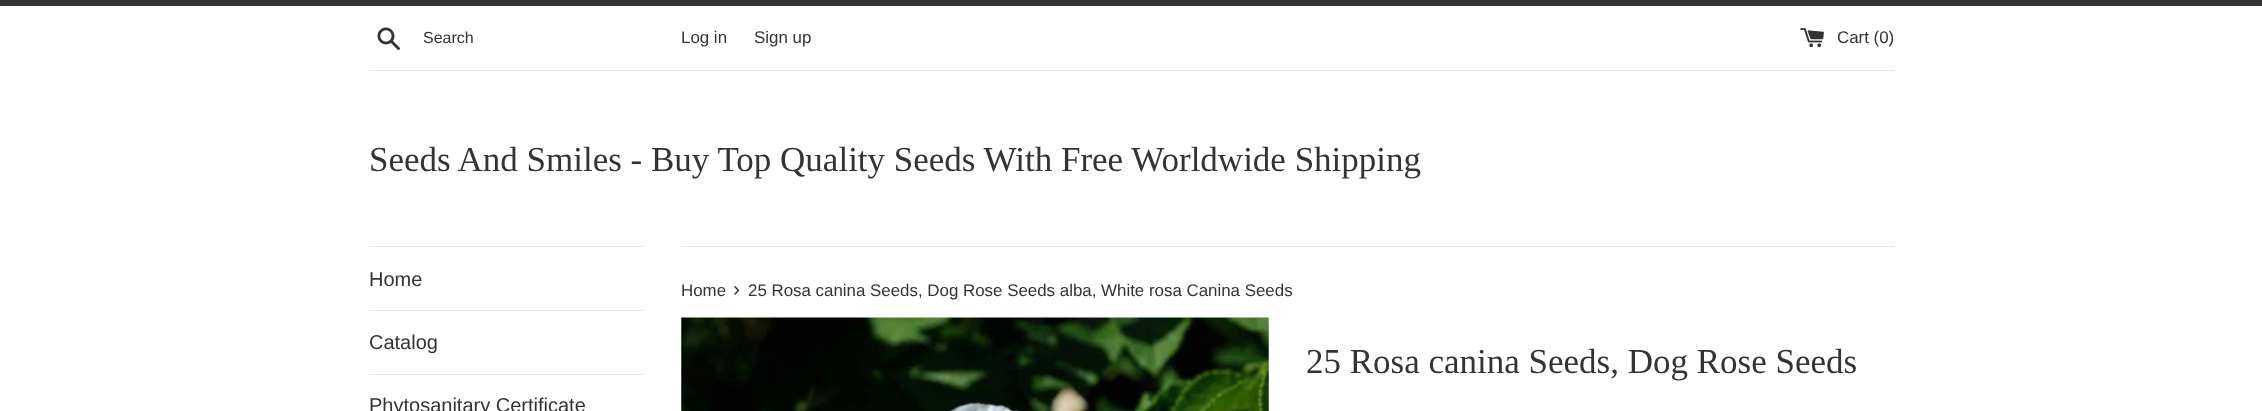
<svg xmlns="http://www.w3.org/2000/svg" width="2262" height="411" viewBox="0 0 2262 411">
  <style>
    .t1 { font: 16px Liberation Sans; fill: #333; }
    .t2 { font: 16.9px Liberation Sans; fill: #333; }
    .t3 { font: 35px Liberation Serif; fill: #333; }
    .t4 { font: 20px Liberation Sans; fill: #333; }
    .t5 { font: 21px Liberation Sans; fill: #333; }
  </style>
  <rect width="100%" height="100%" fill="#fff"/>
  <rect x="0" y="0" width="2262" height="6" fill="#333"/>
  <image x="377" y="27" width="23" height="23" href="images/1.png"/>
  <text x="423" y="43" class="t1">Search</text>
  <text x="681" y="43" class="t2">Log in</text>
  <text x="754" y="43" class="t2">Sign up</text>
  <image x="1800" y="28" width="24" height="20" href="images/2.png"/>
  <text x="1837" y="43" class="t2">Cart (0)</text>
  <rect x="369" y="70" width="1525" height="1" fill="#e8e8e8"/>
  <text x="369" y="171" class="t3">Seeds And Smiles - Buy Top Quality Seeds With Free Worldwide Shipping</text>
  <rect x="369" y="246" width="275" height="1" fill="#e8e8e8"/>
  <rect x="369" y="310" width="275" height="1" fill="#e8e8e8"/>
  <text x="369" y="286" class="t4">Home</text>
  <rect x="369" y="374" width="275" height="1" fill="#e8e8e8"/>
  <text x="369" y="349" class="t4">Catalog</text>
  <text x="369" y="412" class="t4">Phytosanitary Certificate</text>
  <rect x="681" y="246" width="1213" height="1" fill="#e8e8e8"/>
  <text x="681" y="296" class="t2">Home</text>
  <text x="733" y="296" class="t5">›</text>
  <text x="748" y="296" class="t2">25 Rosa canina Seeds, Dog Rose Seeds alba, White rosa Canina Seeds</text>
  <image x="681" y="317" width="588" height="94" href="images/3.png"/>
  <text x="1306" y="373" class="t3">25 Rosa canina Seeds, Dog Rose Seeds</text>
</svg>
